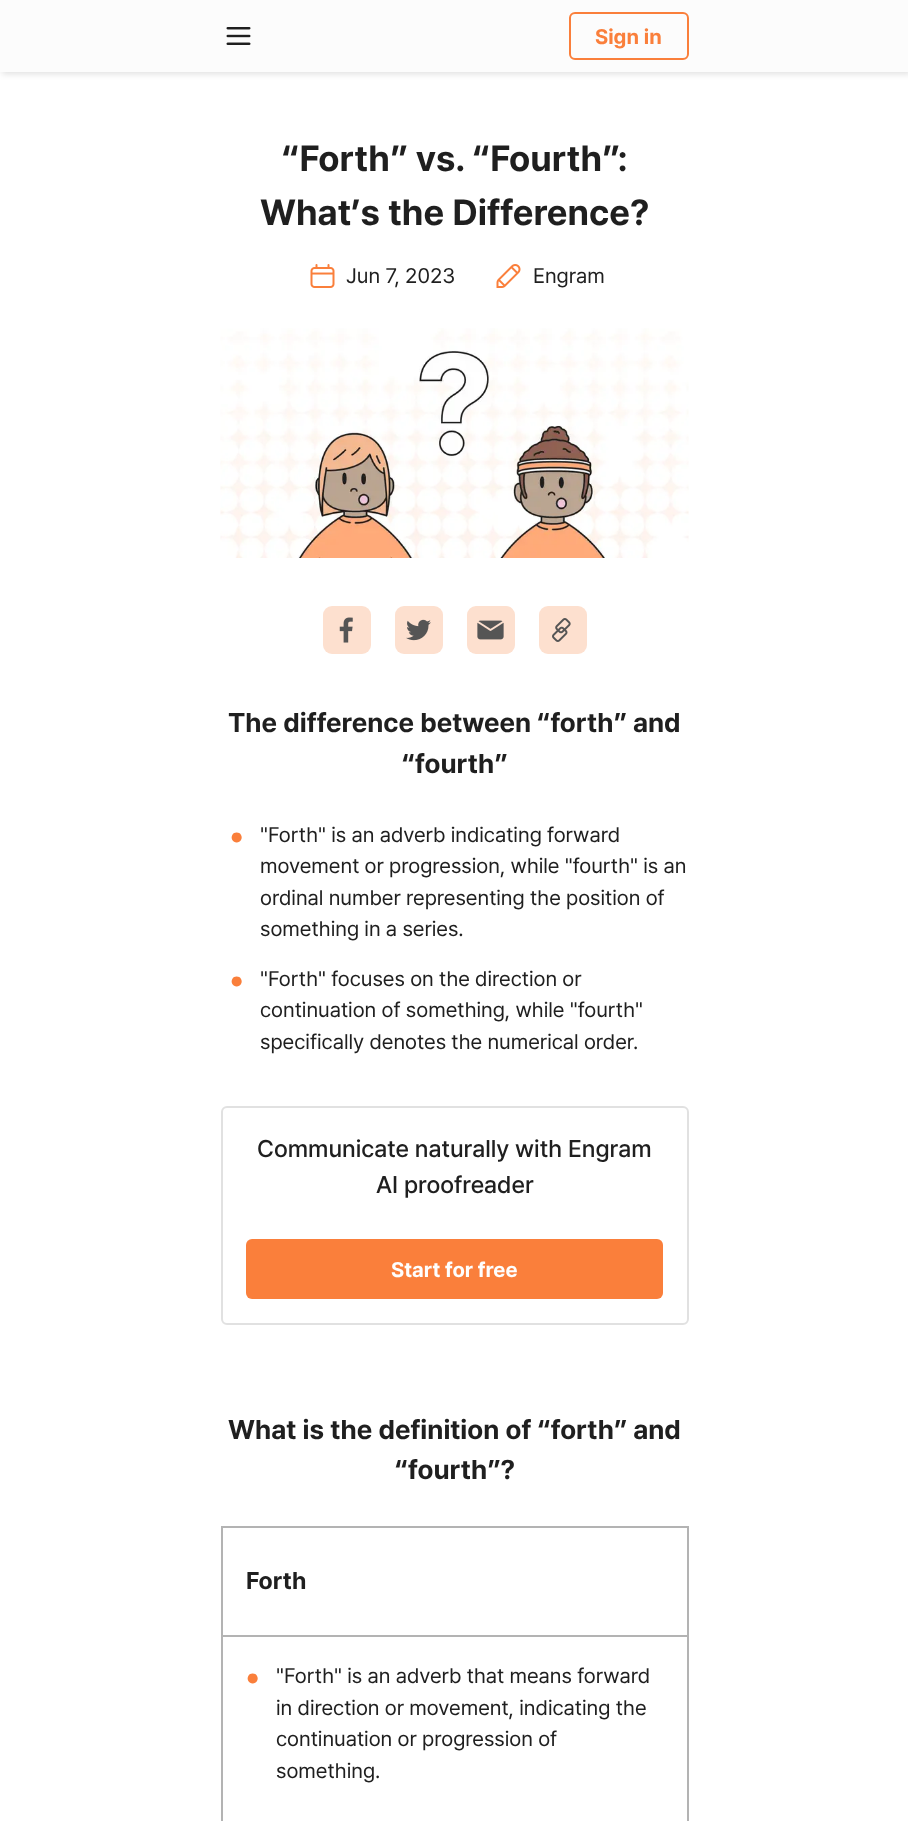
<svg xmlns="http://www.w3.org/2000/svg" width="908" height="1821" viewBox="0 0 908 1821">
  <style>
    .t1 { font: bold 21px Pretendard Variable; fill: #fa7f3b; }
    .t2 { font: bold 36px Pretendard Variable; fill: #1f1f1f; }
    .t3 { font: 21px Pretendard Variable; fill: #1f1f1f; }
    .t4 { font: bold 27px Pretendard Variable; fill: #1f1f1f; }
    .t5 { font: 13px Pretendard Variable; fill: #fa7f3b; }
    .t6 { font: 500 24px Pretendard Variable; fill: #1f1f1f; }
    .t7 { font: bold 21px Pretendard Variable; fill: #fefefe; }
    .t8 { font: bold 24px Pretendard Variable; fill: #1f1f1f; }
  </style>
  <rect width="100%" height="100%" fill="#fff"/>
  <rect x="2" y="2" width="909" height="72" fill="#0000001f" filter="blur(3px)"/>
  <rect x="0" y="0" width="908" height="72" fill="#fcfcfc"/>
  <image x="226" y="27" width="25" height="18" href="images/1.png"/>
  <rect x="570" y="13" width="118" height="46" rx="5" fill="none" stroke="#fa7f3b" stroke-width="2"/>
  <text x="595" y="44" class="t1">Sign in</text>
  <text x="282" y="171" class="t2">“Forth” vs. “Fourth”:</text>
  <text x="260" y="225" class="t2">What’s the Difference?</text>
  <image x="310" y="264" width="25" height="24" href="images/2.png"/>
  <text x="346" y="283" class="t3">Jun 7, 2023</text>
  <image x="496" y="264" width="25" height="24" href="images/3.png"/>
  <text x="533" y="283" class="t3">Engram</text>
  <image x="220" y="328" width="469" height="230" href="images/4.png"/>
  <rect x="323" y="606" width="48" height="48" rx="9" fill="#fde0cf"/>
  <image x="339" y="617" width="14" height="26" href="images/5.png"/>
  <rect x="395" y="606" width="48" height="48" rx="9" fill="#fde0cf"/>
  <image x="406" y="619" width="25" height="22" href="images/6.png"/>
  <rect x="467" y="606" width="48" height="48" rx="9" fill="#fde0cf"/>
  <image x="477" y="620" width="27" height="20" href="images/7.png"/>
  <rect x="539" y="606" width="48" height="48" rx="9" fill="#fde0cf"/>
  <image x="552" y="618" width="19" height="24" href="images/8.png"/>
  <text x="228" y="732" class="t4">The difference between “forth” and</text>
  <text x="402" y="773" class="t4">“fourth”</text>
  <text x="231" y="842" class="t5">●</text>
  <text x="260" y="842" class="t3">"Forth" is an adverb indicating forward</text>
  <text x="260" y="873" class="t3">movement or progression, while "fourth" is an</text>
  <text x="260" y="905" class="t3">ordinal number representing the position of</text>
  <text x="260" y="936" class="t3">something in a series.</text>
  <text x="231" y="986" class="t5">●</text>
  <text x="260" y="986" class="t3">"Forth" focuses on the direction or</text>
  <text x="260" y="1017" class="t3">continuation of something, while "fourth"</text>
  <text x="260" y="1049" class="t3">specifically denotes the numerical order.</text>
  <rect x="222" y="1107" width="466" height="217" rx="5" fill="none" stroke="#e1e1e1" stroke-width="2"/>
  <text x="257" y="1157" class="t6">Communicate naturally with Engram</text>
  <text x="376" y="1193" class="t6">AI proofreader</text>
  <rect x="246" y="1239" width="417" height="60" rx="6" fill="#fa7f3b"/>
  <text x="391" y="1277" class="t7">Start for free</text>
  <text x="228" y="1439" class="t4">What is the definition of “forth” and</text>
  <text x="395" y="1479" class="t4">“fourth”?</text>
  <rect x="222" y="1527" width="466" height="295" fill="none" stroke="#b3b3b3" stroke-width="2"/>
  <rect x="222" y="1635" width="465" height="2" fill="#b3b3b3"/>
  <text x="246" y="1589" class="t8">Forth</text>
  <text x="247" y="1683" class="t5">●</text>
  <text x="276" y="1683" class="t3">"Forth" is an adverb that means forward</text>
  <text x="276" y="1715" class="t3">in direction or movement, indicating the</text>
  <text x="276" y="1746" class="t3">continuation or progression of</text>
  <text x="276" y="1778" class="t3">something.</text>
</svg>
